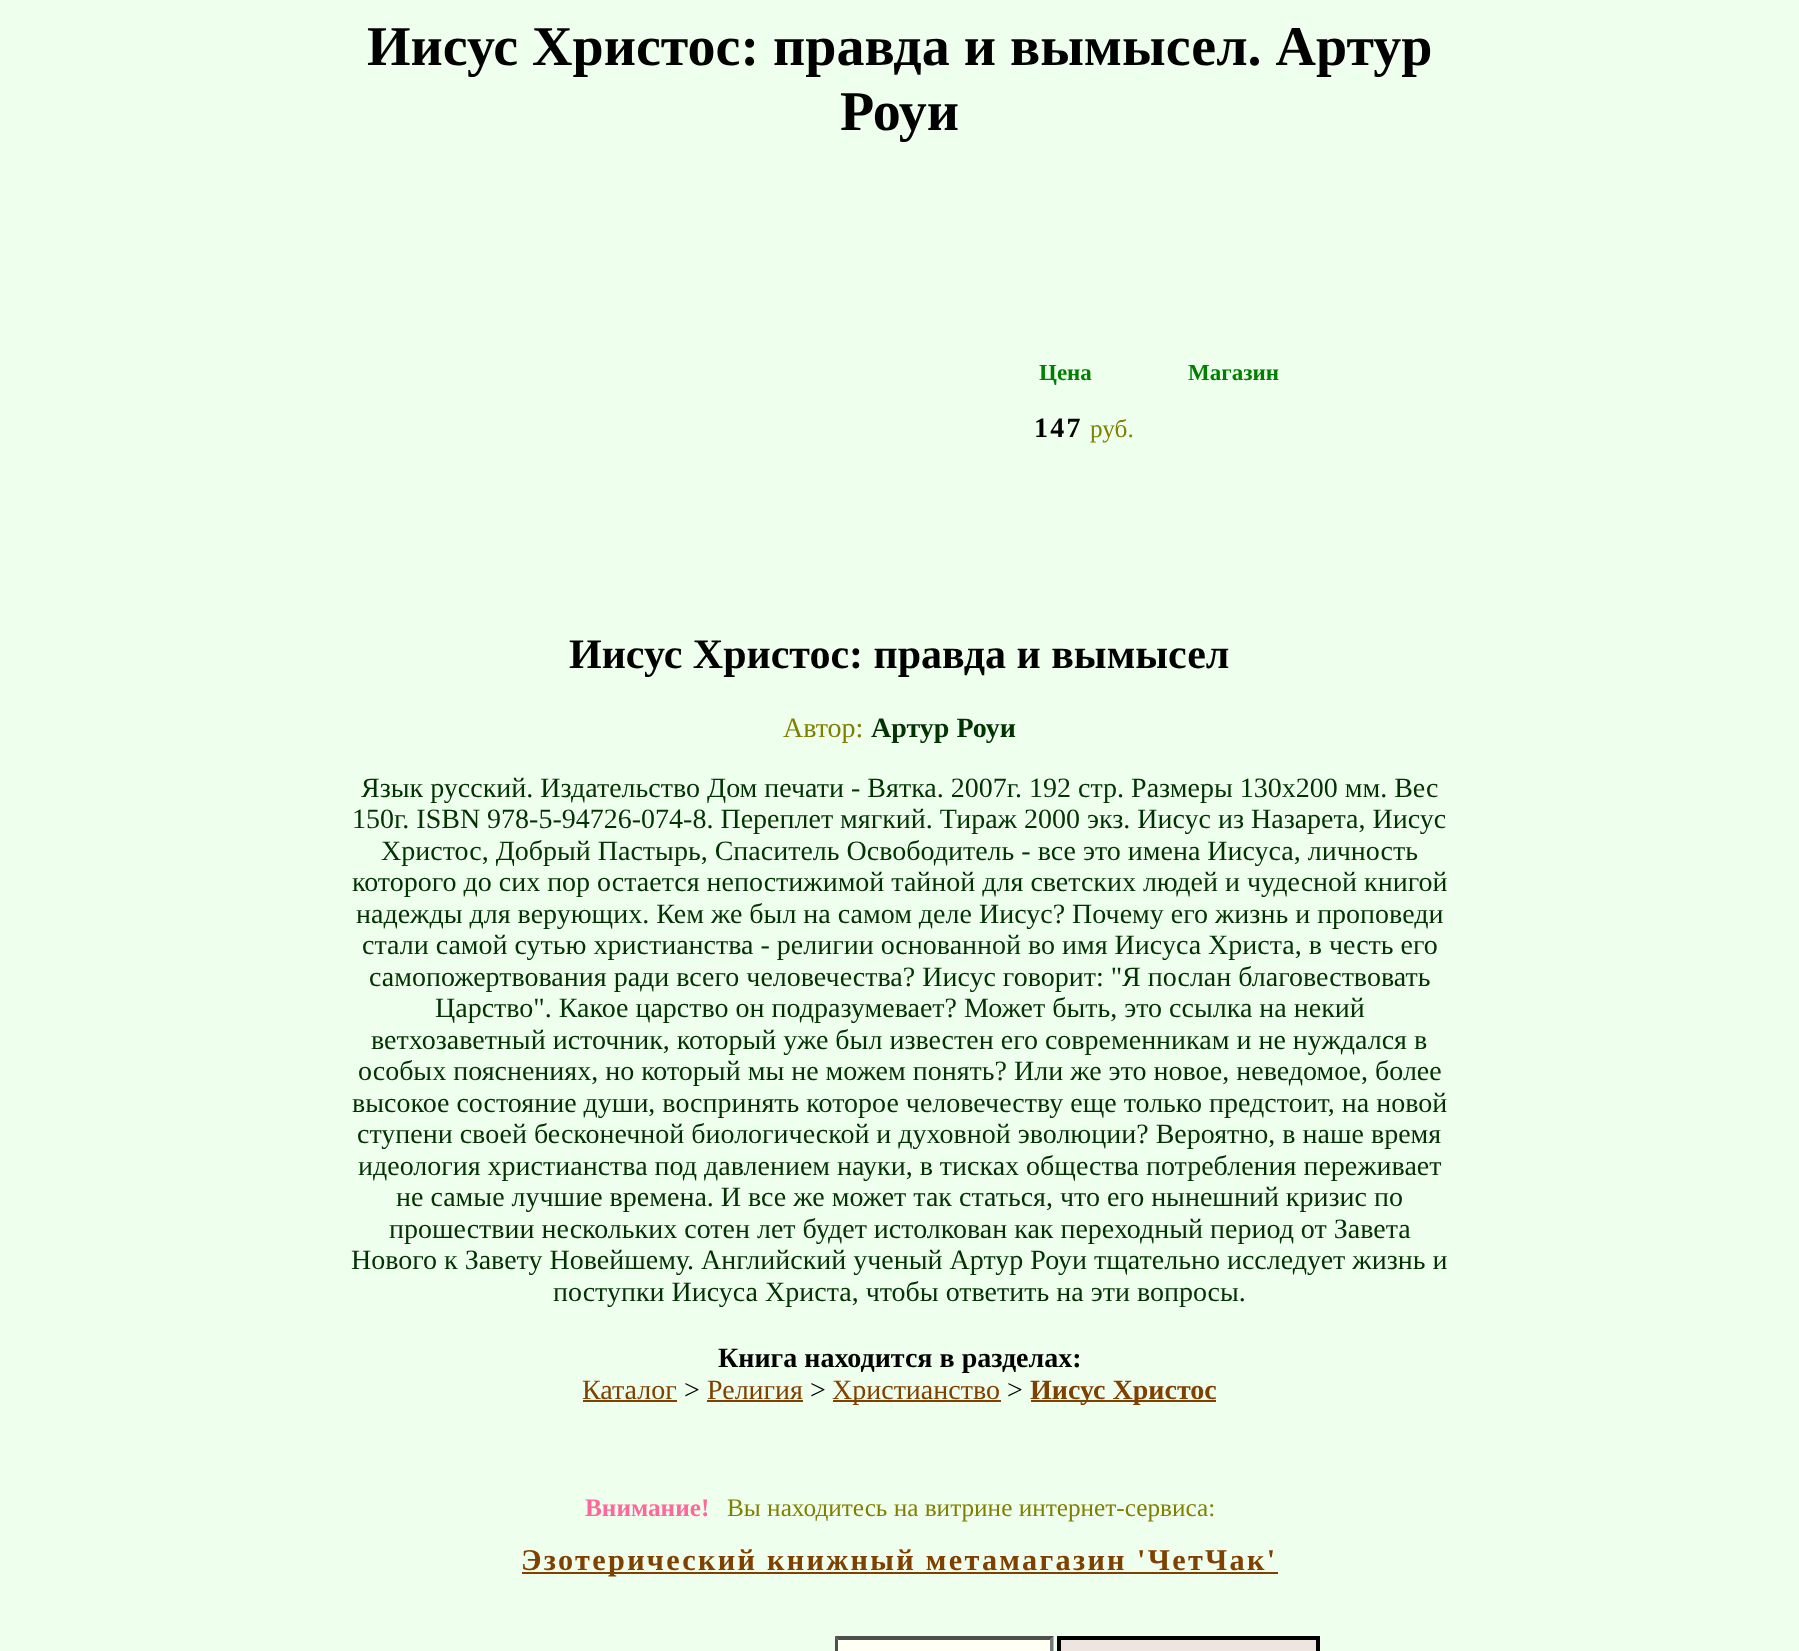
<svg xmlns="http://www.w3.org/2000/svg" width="1799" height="1651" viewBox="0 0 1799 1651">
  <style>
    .t1 { font: bold 56px Liberation Serif; fill: #000; }
    .t2 { font: bold 23px Liberation Serif; fill: #008000; }
    .t3 { font: bold 28px Liberation Serif; letter-spacing: 2.3px; fill: #000; }
    .t4 { font: 25.25px Liberation Serif; fill: #808000; }
    .t5 { font: bold 42px Liberation Serif; fill: #000; }
    .t6 { font: 28px Liberation Serif; fill: #808000; }
    .t7 { font: bold 28px Liberation Serif; fill: #030; }
    .t8 { font: 28px Liberation Serif; fill: #030; }
    .t9 { font: bold 28px Liberation Serif; fill: #000; }
    .t10 { font: 28px Liberation Serif; fill: #804000; }
    .t11 { font: 28px Liberation Serif; fill: #000; }
    .t12 { font: bold 28px Liberation Serif; fill: #804000; }
    .t13 { font: bold 25.25px Liberation Serif; fill: #f69; }
    .t14 { font: bold 30.25px Liberation Serif; letter-spacing: 2.3px; fill: #804000; }
  </style>
  <rect width="100%" height="100%" fill="#efe"/>
  <text x="367" y="65" class="t1">Иисус Христос: правда и вымысел. Артур</text>
  <text x="840" y="130" class="t1">Роуи</text>
  <text x="1039" y="380" class="t2">Цена</text>
  <text x="1188" y="380" class="t2">Магазин</text>
  <text x="1034" y="437" class="t3">147</text>
  <text x="1090" y="437" class="t4">руб.</text>
  <text x="569" y="668" class="t5">Иисус Христос: правда и вымысел</text>
  <text x="783" y="737" class="t6">Автор:</text>
  <text x="871" y="737" class="t7">Артур Роуи</text>
  <text x="361" y="797" class="t8">Язык русский. Издательство Дом печати - Вятка. 2007г. 192 стр. Размеры 130х200 мм. Вес</text>
  <text x="352" y="828" class="t8">150г. ISBN 978-5-94726-074-8. Переплет мягкий. Тираж 2000 экз. Иисус из Назарета, Иисус</text>
  <text x="381" y="860" class="t8">Христос, Добрый Пастырь, Спаситель Освободитель - все это имена Иисуса, личность</text>
  <text x="352" y="891" class="t8">которого до сих пор остается непостижимой тайной для светских людей и чудесной книгой</text>
  <text x="356" y="923" class="t8">надежды для верующих. Кем же был на самом деле Иисус? Почему его жизнь и проповеди</text>
  <text x="362" y="954" class="t8">стали самой сутью христианства - религии основанной во имя Иисуса Христа, в честь его</text>
  <text x="369" y="986" class="t8">самопожертвования ради всего человечества? Иисус говорит: "Я послан благовествовать</text>
  <text x="435" y="1017" class="t8">Царство". Какое царство он подразумевает? Может быть, это ссылка на некий</text>
  <text x="371" y="1049" class="t8">ветхозаветный источник, который уже был известен его современникам и не нуждался в</text>
  <text x="358" y="1080" class="t8">особых пояснениях, но который мы не можем понять? Или же это новое, неведомое, более</text>
  <text x="352" y="1112" class="t8">высокое состояние души, воспринять которое человечеству еще только предстоит, на новой</text>
  <text x="357" y="1143" class="t8">ступени своей бесконечной биологической и духовной эволюции? Вероятно, в наше время</text>
  <text x="358" y="1175" class="t8">идеология христианства под давлением науки, в тисках общества потребления переживает</text>
  <text x="396" y="1206" class="t8">не самые лучшие времена. И все же может так статься, что его нынешний кризис по</text>
  <text x="389" y="1238" class="t8">прошествии нескольких сотен лет будет истолкован как переходный период от Завета</text>
  <text x="351" y="1269" class="t8">Нового к Завету Новейшему. Английский ученый Артур Роуи тщательно исследует жизнь и</text>
  <text x="553" y="1301" class="t8">поступки Иисуса Христа, чтобы ответить на эти вопросы.</text>
  <text x="718" y="1367" class="t9">Книга находится в разделах:</text>
  <text x="582" y="1399" class="t10">Каталог</text>
  <rect x="583" y="1400" width="94" height="2" fill="#804000"/>
  <text x="684" y="1399" class="t11">&gt;</text>
  <text x="707" y="1399" class="t10">Религия</text>
  <rect x="707" y="1400" width="96" height="2" fill="#804000"/>
  <text x="810" y="1399" class="t11">&gt;</text>
  <rect x="833" y="1400" width="168" height="2" fill="#804000"/>
  <text x="832" y="1399" class="t10">Христианство</text>
  <text x="1007" y="1399" class="t11">&gt;</text>
  <rect x="1031" y="1400" width="185" height="2" fill="#804000"/>
  <text x="1030" y="1399" class="t12">Иисус Христос</text>
  <text x="585" y="1516" class="t13">Внимание!</text>
  <text x="727" y="1516" class="t4">Вы находитесь на витрине интернет-сервиса:</text>
  <rect x="522" y="1572" width="756" height="2" fill="#804000"/>
  <text x="521" y="1570" class="t14">Эзотерический книжный метамагазин</text>
  <text x="1137" y="1570" class="t14">'ЧетЧак'</text>
  <rect x="835" y="1636" width="219" height="15" fill="#fffff4"/>
  <path d="M835 1636H1054L1050 1640H838Z" fill="#4f4f4f"/>
  <path d="M1053.5 1636V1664L1050 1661V1640Z" fill="#767676"/>
  <path d="M835 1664V1636L838 1640V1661Z" fill="#4f4f4f"/>
  <rect x="1059" y="1638" width="259" height="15" fill="#eee5e0" stroke="#000" stroke-width="4"/>
</svg>
